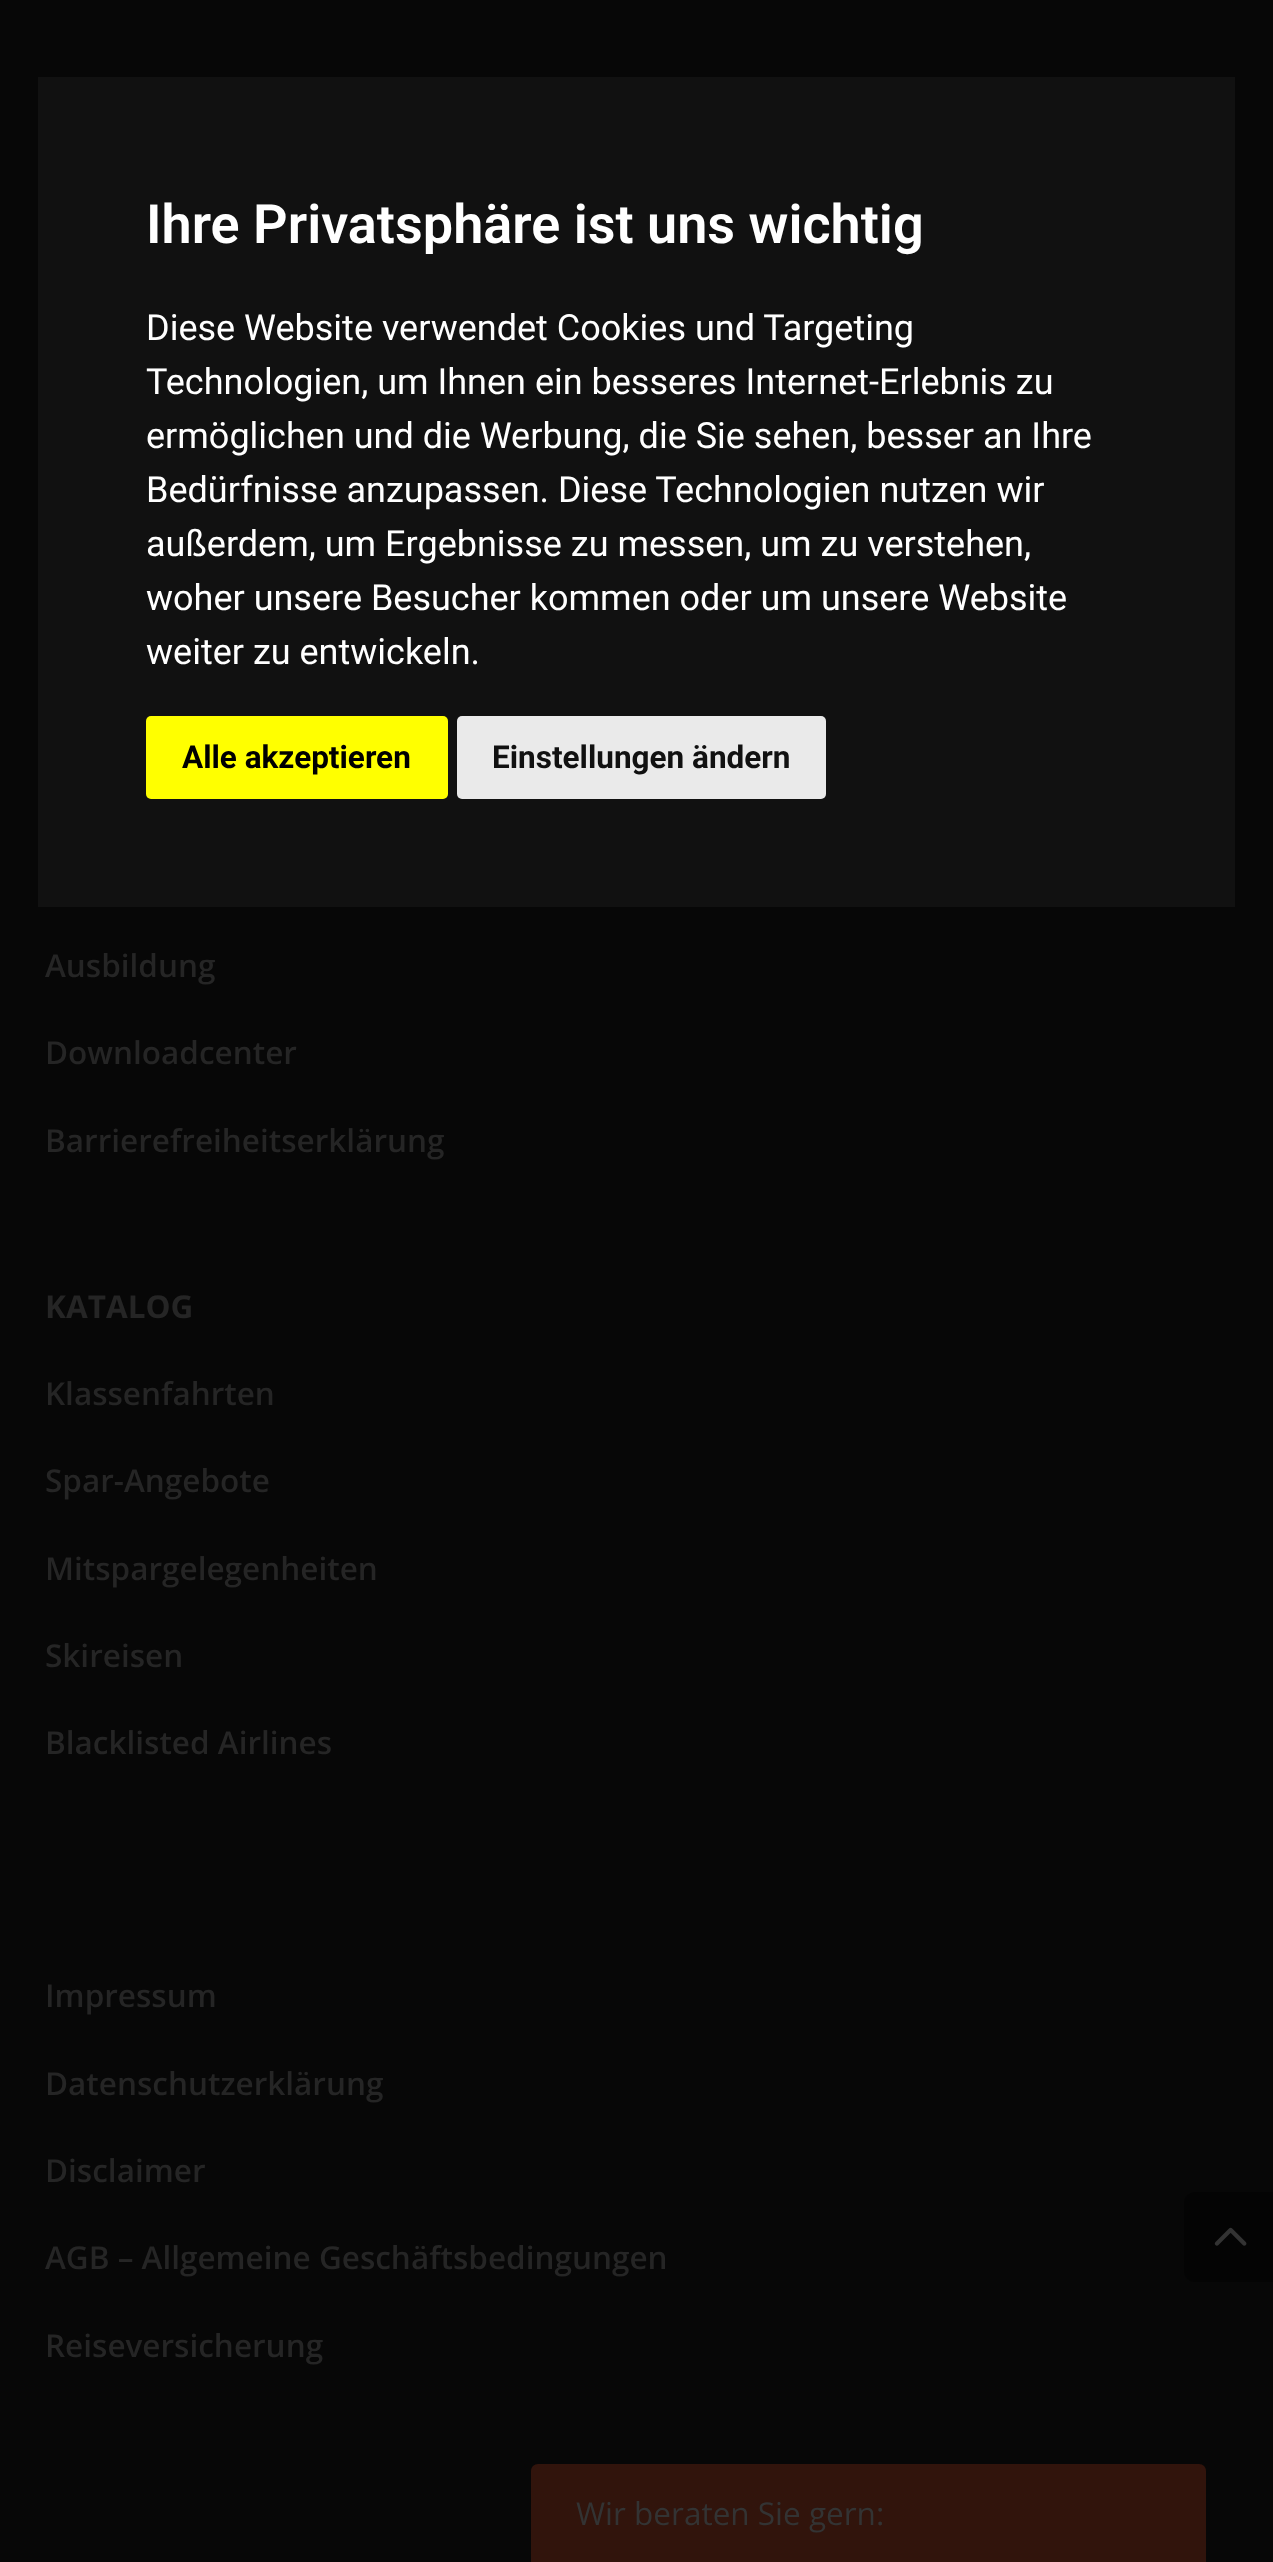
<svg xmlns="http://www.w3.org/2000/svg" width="1273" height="2562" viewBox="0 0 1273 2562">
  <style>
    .t1 { font: 600 54px Roboto; fill: #fff; }
    .t2 { font: 36px Roboto; fill: #fff; }
    .t3 { font: bold 31.5px Roboto; fill: #000; }
    .t4 { font: bold 31.5px Roboto; fill: #111; }
    .t5 { font: 600 31.5px Open Sans; fill: #252525; }
    .t6 { font: bold 31.5px Open Sans; fill: #252525; }
    .t7 { font: 31.5px Open Sans; fill: #333; }
  </style>
  <rect width="100%" height="100%" fill="#070707"/>
  <rect x="38" y="77" width="1197" height="830" fill="#111"/>
  <text x="146" y="243" class="t1">Ihre Privatsphäre ist uns wichtig</text>
  <text x="146" y="340" class="t2">Diese Website verwendet Cookies und Targeting</text>
  <text x="146" y="394" class="t2">Technologien, um Ihnen ein besseres Internet-Erlebnis zu</text>
  <text x="146" y="448" class="t2">ermöglichen und die Werbung, die Sie sehen, besser an Ihre</text>
  <text x="146" y="502" class="t2">Bedürfnisse anzupassen. Diese Technologien nutzen wir</text>
  <text x="146" y="556" class="t2">außerdem, um Ergebnisse zu messen, um zu verstehen,</text>
  <text x="146" y="610" class="t2">woher unsere Besucher kommen oder um unsere Website</text>
  <text x="146" y="664" class="t2">weiter zu entwickeln.</text>
  <rect x="146" y="716" width="302" height="83" rx="5" fill="#ff0"/>
  <text x="182" y="768" class="t3">Alle akzeptieren</text>
  <rect x="457" y="716" width="369" height="83" rx="5" fill="#eaeaea"/>
  <text x="492" y="768" class="t4">Einstellungen ändern</text>
  <text x="45" y="977" class="t5">Ausbildung</text>
  <text x="45" y="1064" class="t5">Downloadcenter</text>
  <text x="45" y="1152" class="t5">Barrierefreiheitserklärung</text>
  <text x="45" y="1318" class="t6">KATALOG</text>
  <text x="45" y="1405" class="t5">Klassenfahrten</text>
  <text x="45" y="1492" class="t5">Spar-Angebote</text>
  <text x="45" y="1580" class="t5">Mitspargelegenheiten</text>
  <text x="45" y="1667" class="t5">Skireisen</text>
  <text x="45" y="1754" class="t5">Blacklisted Airlines</text>
  <text x="45" y="2007" class="t5">Impressum</text>
  <text x="45" y="2095" class="t5">Datenschutzerklärung</text>
  <text x="45" y="2182" class="t5">Disclaimer</text>
  <text x="45" y="2269" class="t5">AGB – Allgemeine Geschäftsbedingungen</text>
  <text x="45" y="2357" class="t5">Reiseversicherung</text>
  <path d="M1195 2192H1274V2282H1195C1189 2282 1184 2277 1184 2271V2203C1184 2197 1189 2192 1195 2192Z" fill="#00000066"/>
  <image x="1214" y="2227" width="33" height="19" href="images/1.png"/>
  <path d="M538 2464H1199C1203 2464 1206 2467 1206 2471V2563H531V2471C531 2467 534 2464 538 2464Z" fill="#31140c"/>
  <text x="576" y="2525" class="t7">Wir beraten Sie gern:</text>
</svg>
